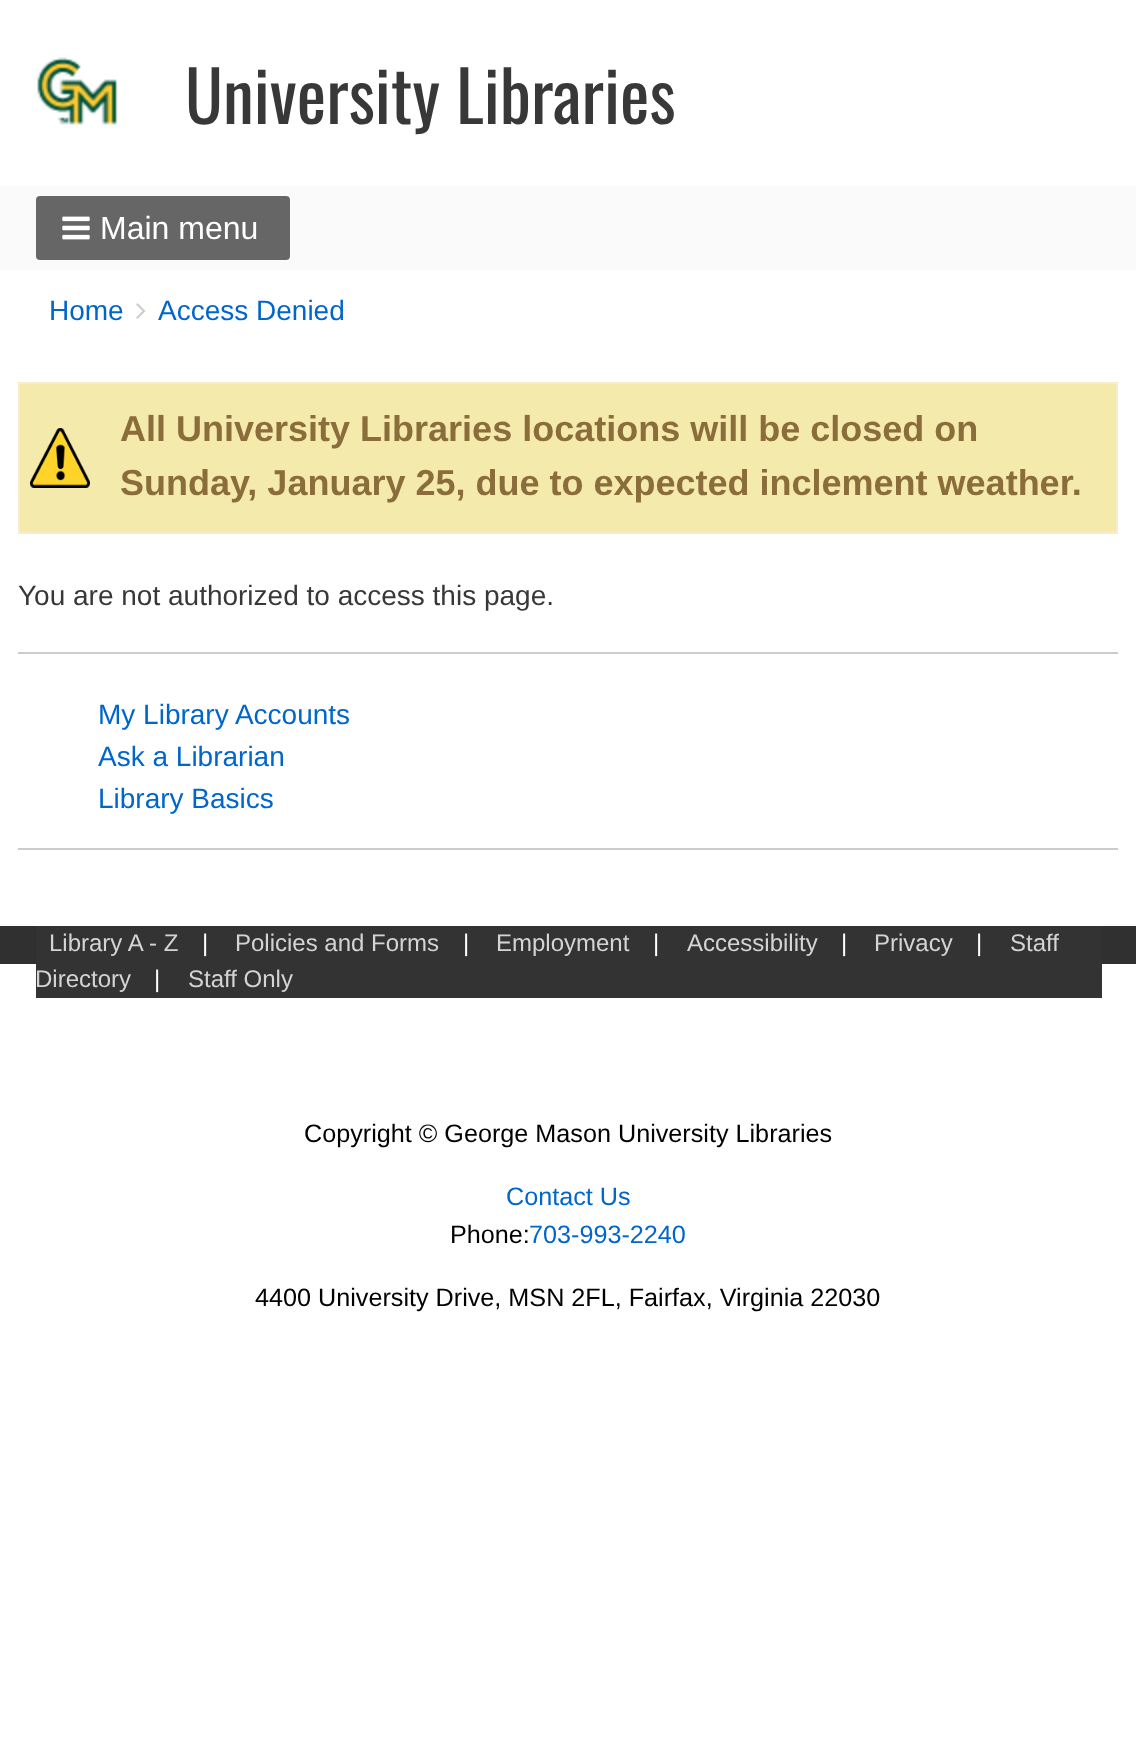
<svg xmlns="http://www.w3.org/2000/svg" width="1136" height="1740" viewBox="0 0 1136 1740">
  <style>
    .t1 { font: 70px Oswald; fill: #383838; }
    .t2 { font: 32px Liberation Sans; fill: #fff; }
    .t3 { font: 28px Liberation Sans; fill: #06c; }
    .t4 { font: bold 36px Liberation Sans; fill: #8a6d3b; }
    .t5 { font: 28px Liberation Sans; fill: #383838; }
    .t6 { font: 24px Liberation Sans; fill: #d4d4d4; }
    .t7 { font: 24px Liberation Sans; fill: #fff; }
    .t8 { font: 25.2px Liberation Sans; fill: #000; }
    .t9 { font: 25.2px Liberation Sans; fill: #06c; }
  </style>
  <rect width="100%" height="100%" fill="#fff"/>
  <image x="37" y="57" width="81" height="68" href="images/1.png"/>
  <text x="185" y="124" class="t1">University Libraries</text>
  <rect x="0" y="186" width="1136" height="84" fill="#fafafa"/>
  <rect x="36" y="196" width="254" height="64" rx="4" fill="#666"/>
  <image x="62" y="216" width="28" height="24" href="images/2.png"/>
  <text x="100" y="239" class="t2">Main menu</text>
  <text x="49" y="320" class="t3">Home</text>
  <image x="136" y="303" width="10" height="16" href="images/3.png"/>
  <text x="158" y="320" class="t3">Access Denied</text>
  <rect x="20" y="384" width="1096" height="148" fill="#f3eaac"/>
  <image x="30" y="428" width="60" height="60" href="images/4.png"/>
  <rect x="19" y="383" width="1098" height="150" fill="none" stroke="#faebcc" stroke-width="2"/>
  <text x="120" y="441" class="t4">All University Libraries locations will be closed on</text>
  <text x="120" y="495" class="t4">Sunday, January 25, due to expected inclement weather.</text>
  <text x="18" y="605" class="t5">You are not authorized to access this page.</text>
  <rect x="18" y="652" width="1100" height="2" fill="#ccc"/>
  <text x="98" y="724" class="t3">My Library Accounts</text>
  <text x="98" y="766" class="t3">Ask a Librarian</text>
  <text x="98" y="808" class="t3">Library Basics</text>
  <rect x="18" y="848" width="1100" height="2" fill="#ccc"/>
  <rect x="0" y="926" width="1136" height="38" fill="#303030"/>
  <rect x="36" y="926" width="1066" height="72" fill="#333"/>
  <text x="49" y="951" class="t6">Library A - Z</text>
  <text x="202" y="951" class="t7">|</text>
  <text x="235" y="951" class="t6">Policies and Forms</text>
  <text x="463" y="951" class="t7">|</text>
  <text x="496" y="951" class="t6">Employment</text>
  <text x="653" y="951" class="t7">|</text>
  <text x="687" y="951" class="t6">Accessibility</text>
  <text x="841" y="951" class="t7">|</text>
  <text x="874" y="951" class="t6">Privacy</text>
  <text x="976" y="951" class="t7">|</text>
  <text x="1010" y="951" class="t6">Staff</text>
  <text x="35" y="987" class="t6">Directory</text>
  <text x="154" y="987" class="t7">|</text>
  <text x="188" y="987" class="t6">Staff Only</text>
  <text x="304" y="1142" class="t8">Copyright © George Mason University Libraries</text>
  <text x="506" y="1205" class="t9">Contact Us</text>
  <text x="450" y="1243" class="t8">Phone:</text>
  <text x="529" y="1243" class="t9">703-993-2240</text>
  <text x="255" y="1306" class="t8">4400 University Drive, MSN 2FL, Fairfax, Virginia 22030</text>
</svg>
